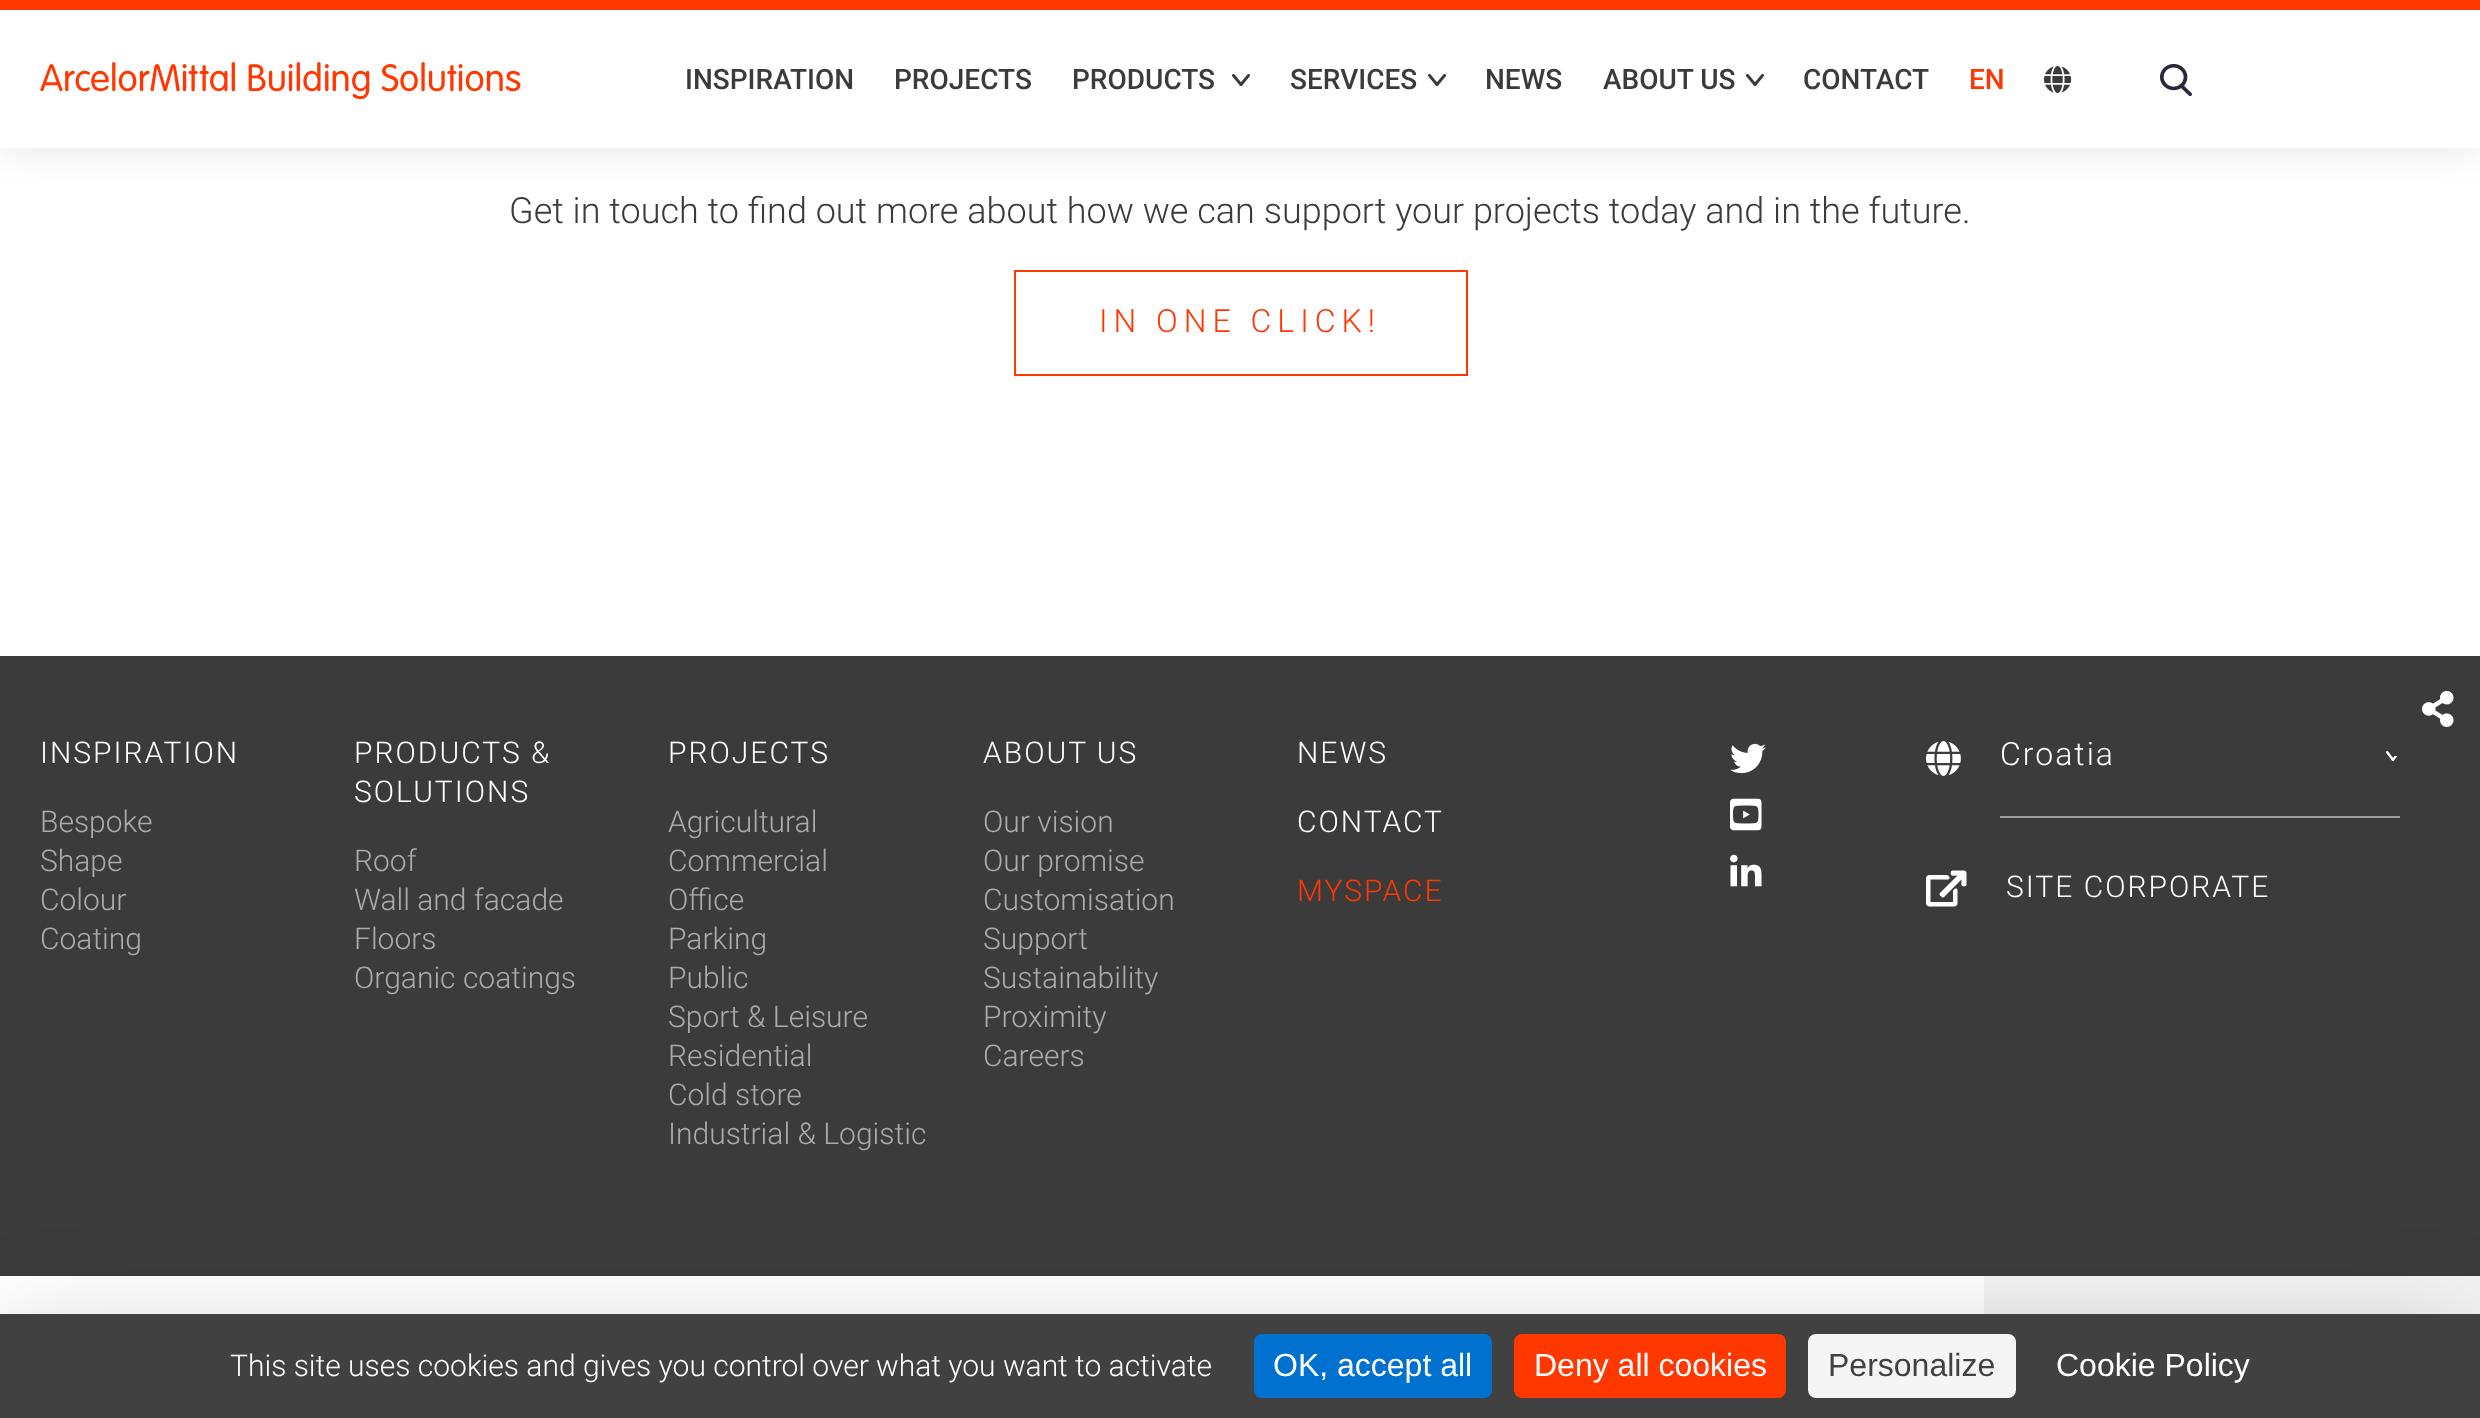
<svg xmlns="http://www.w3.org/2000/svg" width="2480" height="1418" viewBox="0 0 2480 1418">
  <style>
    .t1 { font: 300 40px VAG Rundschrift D; fill: #ff3700; }
    .t2 { font: 500 28px Roboto; fill: #3b3b3b; }
    .t3 { font: 500 28px Roboto; fill: #ff3700; }
    .t4 { font: 300 36px Roboto; fill: #3b3b3b; }
    .t5 { font: 300 32px Roboto; letter-spacing: 6px; fill: #ff3700; }
    .t6 { font: 300 30px Roboto; letter-spacing: 2px; fill: #fff; }
    .t7 { font: 300 30px Roboto; fill: #ababab; }
    .t8 { font: 300 30px Roboto; letter-spacing: 2px; fill: #ff3700; }
    .t9 { font: 300 32px Roboto; letter-spacing: 2px; fill: #fff; }
    .t10 { font: 300 30px Roboto; fill: #fff; }
    .t11 { font: 32px Liberation Sans; fill: #fff; }
    .t12 { font: 32px Liberation Sans; fill: #414141; }
  </style>
  <rect width="100%" height="100%" fill="#fff"/>
  <rect x="0" y="0" width="2480" height="148" fill="#0000001a" filter="blur(20px)"/>
  <rect x="0" y="10" width="2480" height="138" fill="#fff"/>
  <rect x="0" y="0" width="2480" height="10" fill="#ff3700"/>
  <text x="40" y="91" class="t1">ArcelorMittal Building Solutions</text>
  <text x="685" y="89" class="t2">INSPIRATION</text>
  <text x="894" y="89" class="t2">PROJECTS</text>
  <text x="1072" y="89" class="t2">PRODUCTS</text>
  <image x="1232" y="74" width="18" height="12" href="images/1.png"/>
  <text x="1290" y="89" class="t2">SERVICES</text>
  <image x="1428" y="74" width="18" height="12" href="images/1.png"/>
  <text x="1485" y="89" class="t2">NEWS</text>
  <text x="1603" y="89" class="t2">ABOUT US</text>
  <image x="1746" y="74" width="18" height="12" href="images/1.png"/>
  <text x="1803" y="89" class="t2">CONTACT</text>
  <text x="1969" y="89" class="t3">EN</text>
  <image x="2044" y="66" width="28" height="27" href="images/2.png"/>
  <image x="2160" y="64" width="32" height="32" href="images/3.png"/>
  <text x="509" y="223" class="t4">Get in touch to find out more about how we can support your projects today and in the future.</text>
  <rect x="1015" y="271" width="452" height="104" fill="none" stroke="#ff3700" stroke-width="2"/>
  <text x="1099" y="332" class="t5">IN ONE CLICK!</text>
  <rect x="0" y="656" width="2480" height="620" fill="#3b3b3b"/>
  <image x="2386" y="751" width="12" height="10" href="images/9.png"/>
  <rect x="2394" y="751" width="4" height="5" fill="#3b3b3b"/>
  <image x="2422" y="690" width="32" height="37" href="images/4.png"/>
  <text x="40" y="763" class="t6">INSPIRATION</text>
  <text x="40" y="832" class="t7">Bespoke</text>
  <text x="40" y="871" class="t7">Shape</text>
  <text x="40" y="910" class="t7">Colour</text>
  <text x="40" y="949" class="t7">Coating</text>
  <text x="354" y="763" class="t6">PRODUCTS &amp;</text>
  <text x="354" y="802" class="t6">SOLUTIONS</text>
  <text x="354" y="871" class="t7">Roof</text>
  <text x="354" y="910" class="t7">Wall and facade</text>
  <text x="354" y="949" class="t7">Floors</text>
  <text x="354" y="988" class="t7">Organic coatings</text>
  <text x="668" y="763" class="t6">PROJECTS</text>
  <text x="668" y="832" class="t7">Agricultural</text>
  <text x="668" y="871" class="t7">Commercial</text>
  <text x="668" y="910" class="t7">Office</text>
  <text x="668" y="949" class="t7">Parking</text>
  <text x="668" y="988" class="t7">Public</text>
  <text x="668" y="1027" class="t7">Sport &amp; Leisure</text>
  <text x="668" y="1066" class="t7">Residential</text>
  <text x="668" y="1105" class="t7">Cold store</text>
  <text x="668" y="1144" class="t7">Industrial &amp; Logistic</text>
  <text x="983" y="763" class="t6">ABOUT US</text>
  <text x="983" y="832" class="t7">Our vision</text>
  <text x="983" y="871" class="t7">Our promise</text>
  <text x="983" y="910" class="t7">Customisation</text>
  <text x="983" y="949" class="t7">Support</text>
  <text x="983" y="988" class="t7">Sustainability</text>
  <text x="983" y="1027" class="t7">Proximity</text>
  <text x="983" y="1066" class="t7">Careers</text>
  <text x="1297" y="763" class="t6">NEWS</text>
  <text x="1297" y="832" class="t6">CONTACT</text>
  <text x="1297" y="901" class="t8">MYSPACE</text>
  <image x="1730" y="743" width="36" height="31" href="images/5.png"/>
  <image x="1730" y="798" width="32" height="33" href="images/6.png"/>
  <image x="1730" y="854" width="32" height="33" href="images/7.png"/>
  <image x="1926" y="741" width="35" height="35" href="images/8.png"/>
  <rect x="2000" y="816" width="400" height="2" fill="#9d9d9d"/>
  <text x="2000" y="765" class="t9">Croatia</text>
  <image x="1926" y="870" width="41" height="37" href="images/10.png"/>
  <text x="2006" y="897" class="t6">SITE CORPORATE</text>
  <rect x="1984" y="1276" width="496" height="38" fill="#f3f3f3"/>
  <rect x="0" y="1354" width="2480" height="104" fill="#00000040" filter="blur(60px)"/>
  <rect x="0" y="1314" width="2480" height="104" fill="#414141"/>
  <text x="230" y="1376" class="t10">This site uses cookies and gives you control over what you want to activate</text>
  <rect x="1254" y="1334" width="238" height="64" rx="8" fill="#0071ce"/>
  <text x="1273" y="1376" class="t11">OK, accept all</text>
  <rect x="1514" y="1334" width="272" height="64" rx="8" fill="#ff3700"/>
  <text x="1534" y="1376" class="t11">Deny all cookies</text>
  <rect x="1808" y="1334" width="208" height="64" rx="8" fill="#f5f5f5"/>
  <text x="1828" y="1376" class="t12">Personalize</text>
  <text x="2056" y="1376" class="t11">Cookie Policy</text>
</svg>
